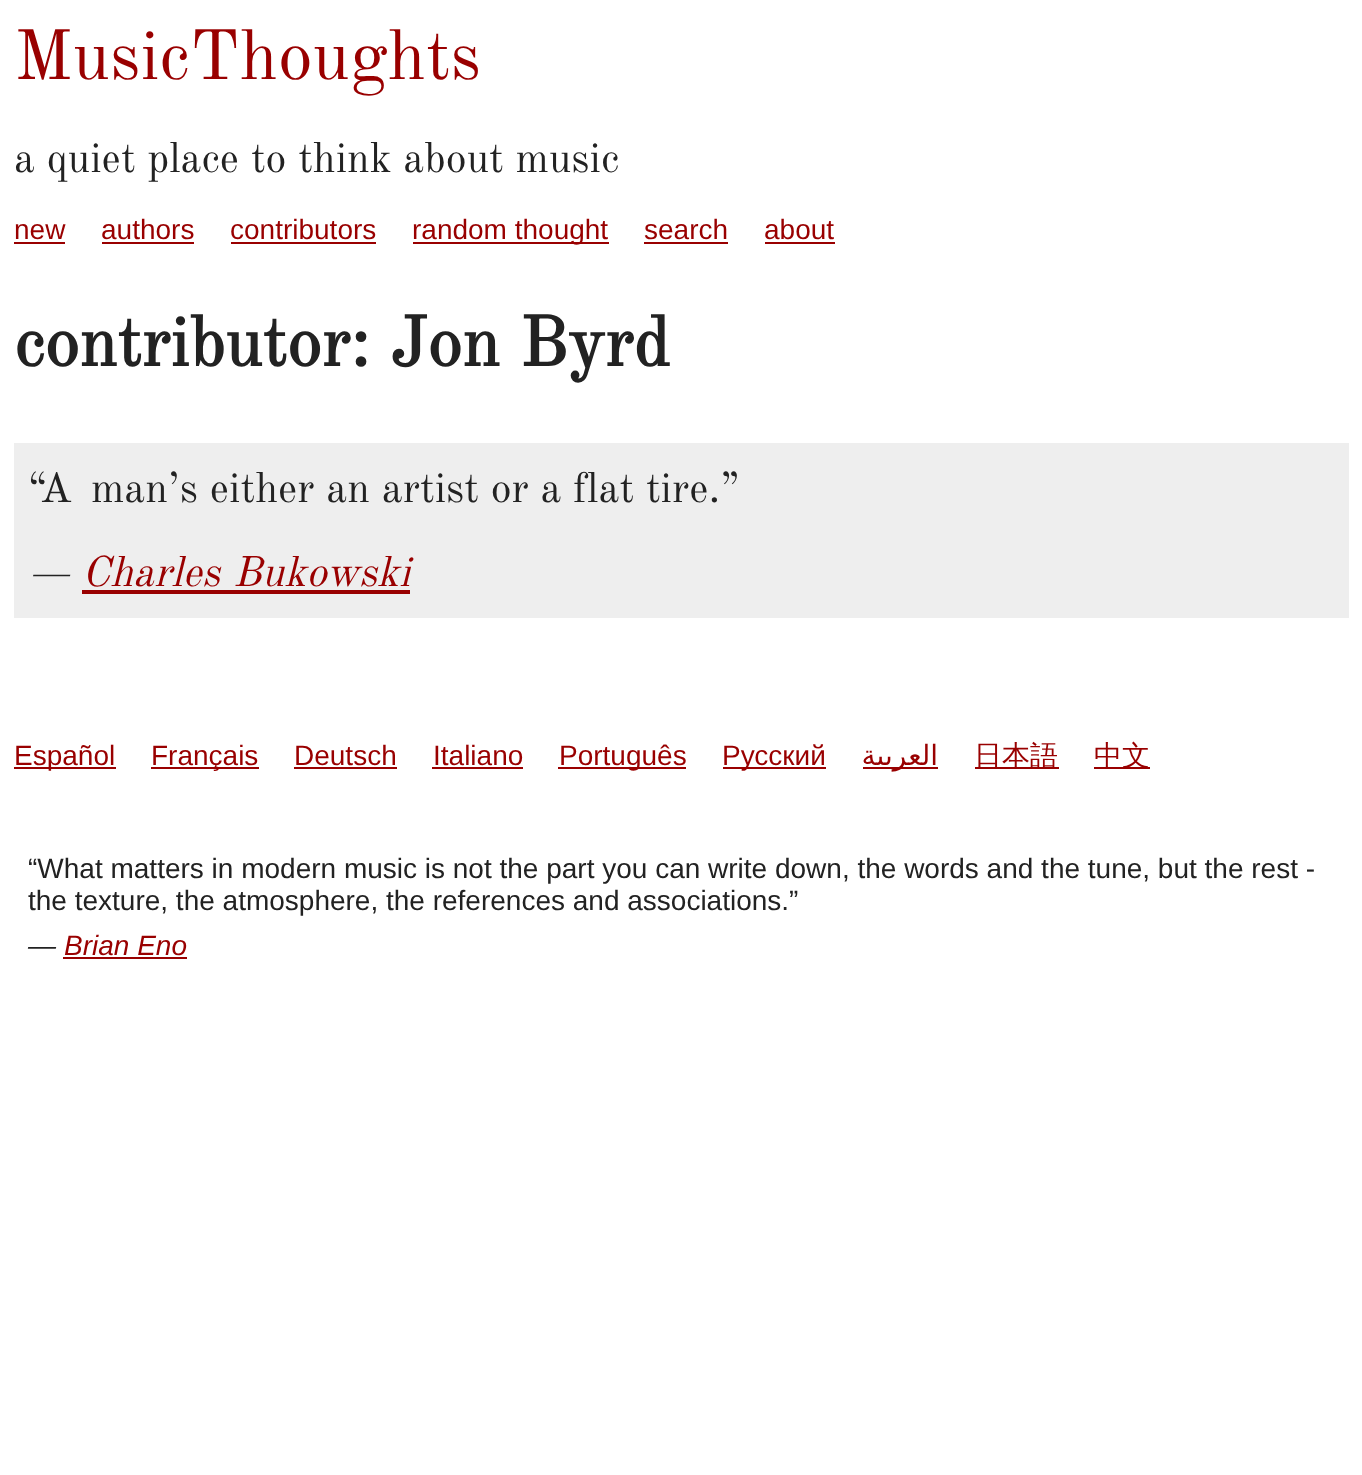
<svg xmlns="http://www.w3.org/2000/svg" width="1362" height="1475" viewBox="0 0 1362 1475">
  <style>
    .t1 { font: 70px Old Standard TT; fill: #900; }
    .t2 { font: 42px Old Standard TT; fill: #222; }
    .t3 { font: 28px Liberation Sans; fill: #900; }
    .t4 { font: bold 70px Old Standard TT; fill: #222; }
    .t5 { font: italic 42px Old Standard TT; fill: #222; }
    .t6 { font: italic 42px Old Standard TT; fill: #900; }
    .t7 { font: 28px DejaVu Sans; direction: rtl; fill: #900; }
    .t8 { font: 500 28px WenQuanYi Zen Hei; fill: #900; }
    .t9 { font: 28px Liberation Sans; fill: #222; }
    .t10 { font: italic 28px Liberation Sans; fill: #222; }
    .t11 { font: italic 28px Liberation Sans; fill: #900; }
  </style>
  <rect width="100%" height="100%" fill="#fff"/>
  <text x="14" y="79" class="t1">MusicThoughts</text>
  <text x="14" y="172" class="t2">a quiet place to think about music</text>
  <text x="14" y="239" class="t3">new</text>
  <rect x="14" y="242" width="51" height="2" fill="#900"/>
  <text x="101" y="239" class="t3">authors</text>
  <rect x="102" y="242" width="92" height="2" fill="#900"/>
  <text x="230" y="239" class="t3">contributors</text>
  <rect x="231" y="242" width="145" height="2" fill="#900"/>
  <rect x="413" y="242" width="196" height="2" fill="#900"/>
  <text x="412" y="239" class="t3">random thought</text>
  <text x="644" y="239" class="t3">search</text>
  <rect x="644" y="242" width="84" height="2" fill="#900"/>
  <text x="764" y="239" class="t3">about</text>
  <rect x="765" y="242" width="70" height="2" fill="#900"/>
  <text x="14" y="366" class="t4">contributor: Jon Byrd</text>
  <rect x="14" y="443" width="1335" height="175" fill="#eee"/>
  <text x="28" y="502" class="t2">“A</text>
  <text x="91" y="502" class="t2">man’s either an artist or a flat tire.”</text>
  <text x="28" y="586" class="t5">—</text>
  <text x="82" y="586" word-spacing="1" class="t6">Charles Bukowski</text>
  <rect x="82" y="590" width="328" height="4" fill="#900"/>
  <rect x="14" y="767" width="102" height="2" fill="#900"/>
  <text x="14" y="765" class="t3">Español</text>
  <rect x="151" y="767" width="108" height="2" fill="#900"/>
  <text x="151" y="765" class="t3">Français</text>
  <text x="294" y="765" class="t3">Deutsch</text>
  <rect x="294" y="767" width="103" height="2" fill="#900"/>
  <text x="433" y="765" class="t3">Italiano</text>
  <rect x="432" y="767" width="91" height="2" fill="#900"/>
  <rect x="558" y="767" width="128" height="2" fill="#900"/>
  <text x="559" y="765" class="t3">Português</text>
  <rect x="723" y="767" width="103" height="2" fill="#900"/>
  <text x="722" y="765" class="t3">Русский</text>
  <rect x="863" y="767" width="75" height="2" fill="#900"/>
  <text x="938" y="765" class="t7">العربية</text>
  <rect x="975" y="767" width="84" height="2" fill="#900"/>
  <text x="974" y="765" class="t8">日本語</text>
  <rect x="1094" y="767" width="56" height="2" fill="#900"/>
  <text x="1094" y="765" class="t8">中文</text>
  <text x="28" y="878" class="t9">“What matters in modern music is not the part you can write down, the words and the tune, but the rest -</text>
  <text x="28" y="910" class="t9">the texture, the atmosphere, the references and associations.”</text>
  <text x="28" y="955" class="t10">—</text>
  <text x="64" y="955" class="t11">Brian Eno</text>
  <rect x="63" y="957" width="124" height="2" fill="#900"/>
</svg>
